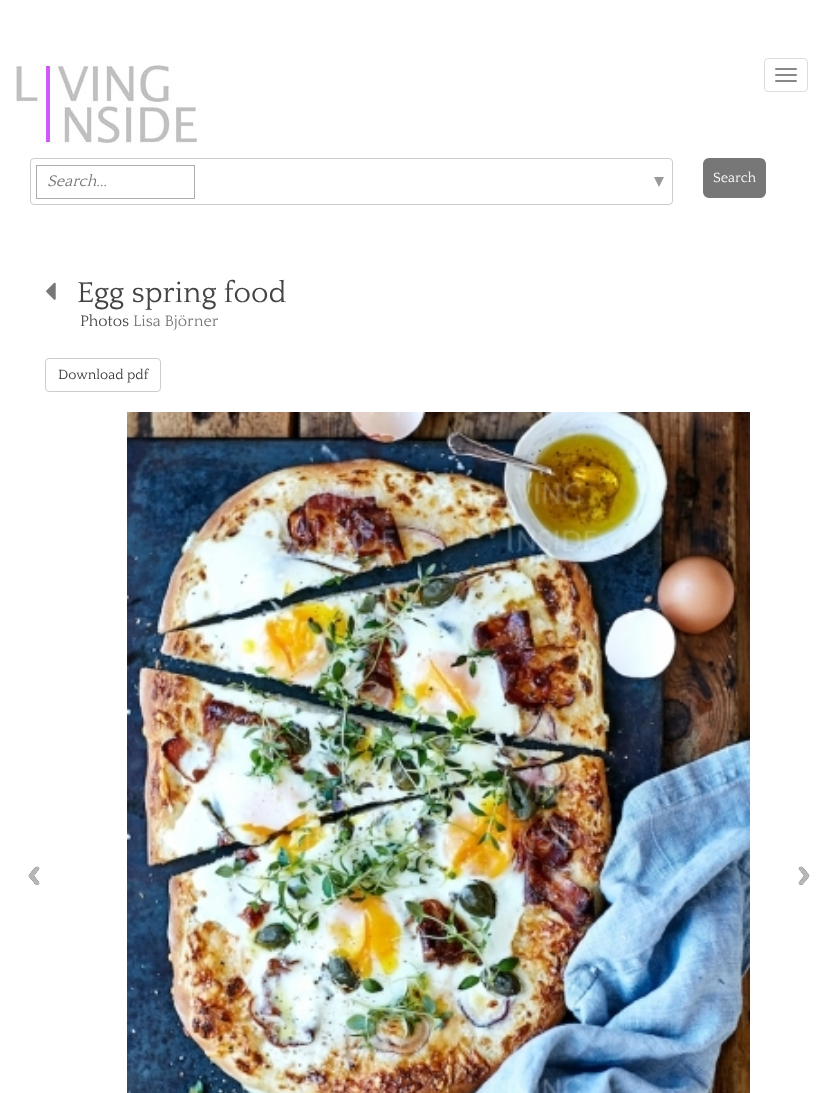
<svg xmlns="http://www.w3.org/2000/svg" width="838" height="1093" viewBox="0 0 838 1093">
  <style>
    .t1 { font: italic 16px Quattrocento; fill: #757575; }
    .t2 { font: 14px Quattrocento; fill: #fff; }
    .t3 { font: 30px Quattrocento; fill: #444; }
    .t4 { font: 16px Quattrocento; fill: #444; }
    .t5 { font: 16px Quattrocento; fill: #757575; }
    .t6 { font: 14px Quattrocento; fill: #333; }
  </style>
  <rect width="100%" height="100%" fill="#fff"/>
  <image x="16" y="65" width="181" height="78" href="images/1.png"/>
  <rect x="764.5" y="58.5" width="43" height="33" rx="3.5" fill="none" stroke="#ddd"/>
  <rect x="775" y="68" width="22" height="2" rx="1" fill="#888"/>
  <rect x="775" y="74" width="22" height="2" rx="1" fill="#888"/>
  <rect x="775" y="80" width="22" height="2" rx="1" fill="#888"/>
  <rect x="30.5" y="158.5" width="642" height="46" rx="3.5" fill="none" stroke="#ccc"/>
  <rect x="36.5" y="165.5" width="158" height="33" fill="none" stroke="#acacac"/>
  <text x="47" y="186" class="t1">Search...</text>
  <path d="M654 177H664L659 187Z" fill="#999"/>
  <rect x="703" y="158" width="63" height="40" rx="6" fill="#777"/>
  <text x="713" y="182" class="t2">Search</text>
  <image x="46" y="282" width="10" height="18" href="images/2.png"/>
  <text x="77" y="302" class="t3">Egg spring food</text>
  <text x="80" y="326" class="t4">Photos</text>
  <text x="133" y="326" class="t5">Lisa Björner</text>
  <rect x="45.5" y="358.5" width="115" height="33" rx="3.5" fill="none" stroke="#ccc"/>
  <text x="58" y="379" class="t6">Download pdf</text>
  <image x="28" y="866" width="12" height="19" href="images/3.png"/>
  <image x="127" y="412" width="623" height="681" href="images/4.png"/>
  <image x="798" y="866" width="12" height="19" href="images/5.png"/>
</svg>
